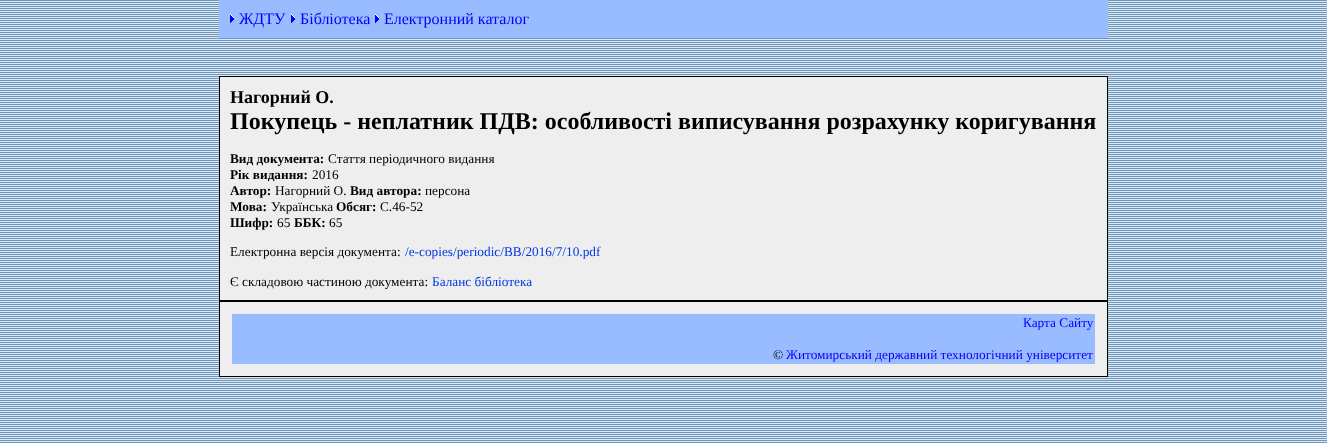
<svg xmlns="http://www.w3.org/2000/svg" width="1327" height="443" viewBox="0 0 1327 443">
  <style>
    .t1 { font: 16px Liberation Serif; fill: #00f; }
    .t2 { font: bold 18px Liberation Serif; fill: #000; }
    .t3 { font: bold 24px Liberation Serif; fill: #000; }
    .t4 { font: bold 13.3px Liberation Serif; fill: #000; }
    .t5 { font: 13.3px Liberation Serif; fill: #000; }
    .t6 { font: 13.3px Liberation Serif; fill: #0039e6; }
    .t7 { font: 13.3px Liberation Serif; fill: #00f; }
  </style>
  <rect width="100%" height="100%" fill="#fff"/>
  <image x="0" y="0" width="1327" height="443" href="images/1.png"/>
  <rect x="219" y="0" width="889" height="38" fill="#9bf"/>
  <image x="230" y="14" width="4" height="9" href="images/2.png"/>
  <text x="239" y="24" class="t1">ЖДТУ</text>
  <image x="291" y="14" width="4" height="9" href="images/2.png"/>
  <text x="300" y="24" class="t1">Бібліотека</text>
  <image x="375" y="14" width="4" height="9" href="images/2.png"/>
  <text x="384" y="24" class="t1">Електронний каталог</text>
  <rect x="219.5" y="76.5" width="888" height="224" fill="#eee" stroke="#000"/>
  <text x="230" y="103" class="t2">Нагорний О.</text>
  <text x="230" y="129" class="t3">Покупець - неплатник ПДВ: особливості виписування розрахунку коригування</text>
  <text x="230" y="163" class="t4">Вид документа:</text>
  <text x="328" y="163" class="t5">Стаття періодичного видання</text>
  <text x="230" y="179" class="t4">Рiк видання:</text>
  <text x="312" y="179" class="t5">2016</text>
  <text x="230" y="195" class="t4">Автор:</text>
  <text x="275" y="195" class="t5">Нагорний О.</text>
  <text x="350" y="195" class="t4">Вид автора:</text>
  <text x="425" y="195" class="t5">персона</text>
  <text x="230" y="211" class="t4">Мова:</text>
  <text x="271" y="211" class="t5">Українська</text>
  <text x="336" y="211" class="t4">Обсяг:</text>
  <text x="380" y="211" class="t5">С.46-52</text>
  <text x="230" y="227" class="t4">Шифр:</text>
  <text x="277" y="227" class="t5">65</text>
  <text x="294" y="227" class="t4">ББК:</text>
  <text x="329" y="227" class="t5">65</text>
  <text x="230" y="256" class="t5">Електронна версія документа:</text>
  <text x="405" y="256" class="t6">/e-copies/periodic/BB/2016/7/10.pdf</text>
  <text x="230" y="286" class="t5">Є складовою частиною документа:</text>
  <text x="432" y="286" class="t6">Баланс бібліотека</text>
  <rect x="219.5" y="301.5" width="888" height="75" fill="#eee" stroke="#000"/>
  <rect x="232" y="314" width="863" height="50" fill="#9bf"/>
  <text x="1023" y="327" class="t7">Карта Сайту</text>
  <text x="773" y="359" class="t5">©</text>
  <text x="786" y="359" class="t7">Житомирський державний технологiчний університет</text>
</svg>
